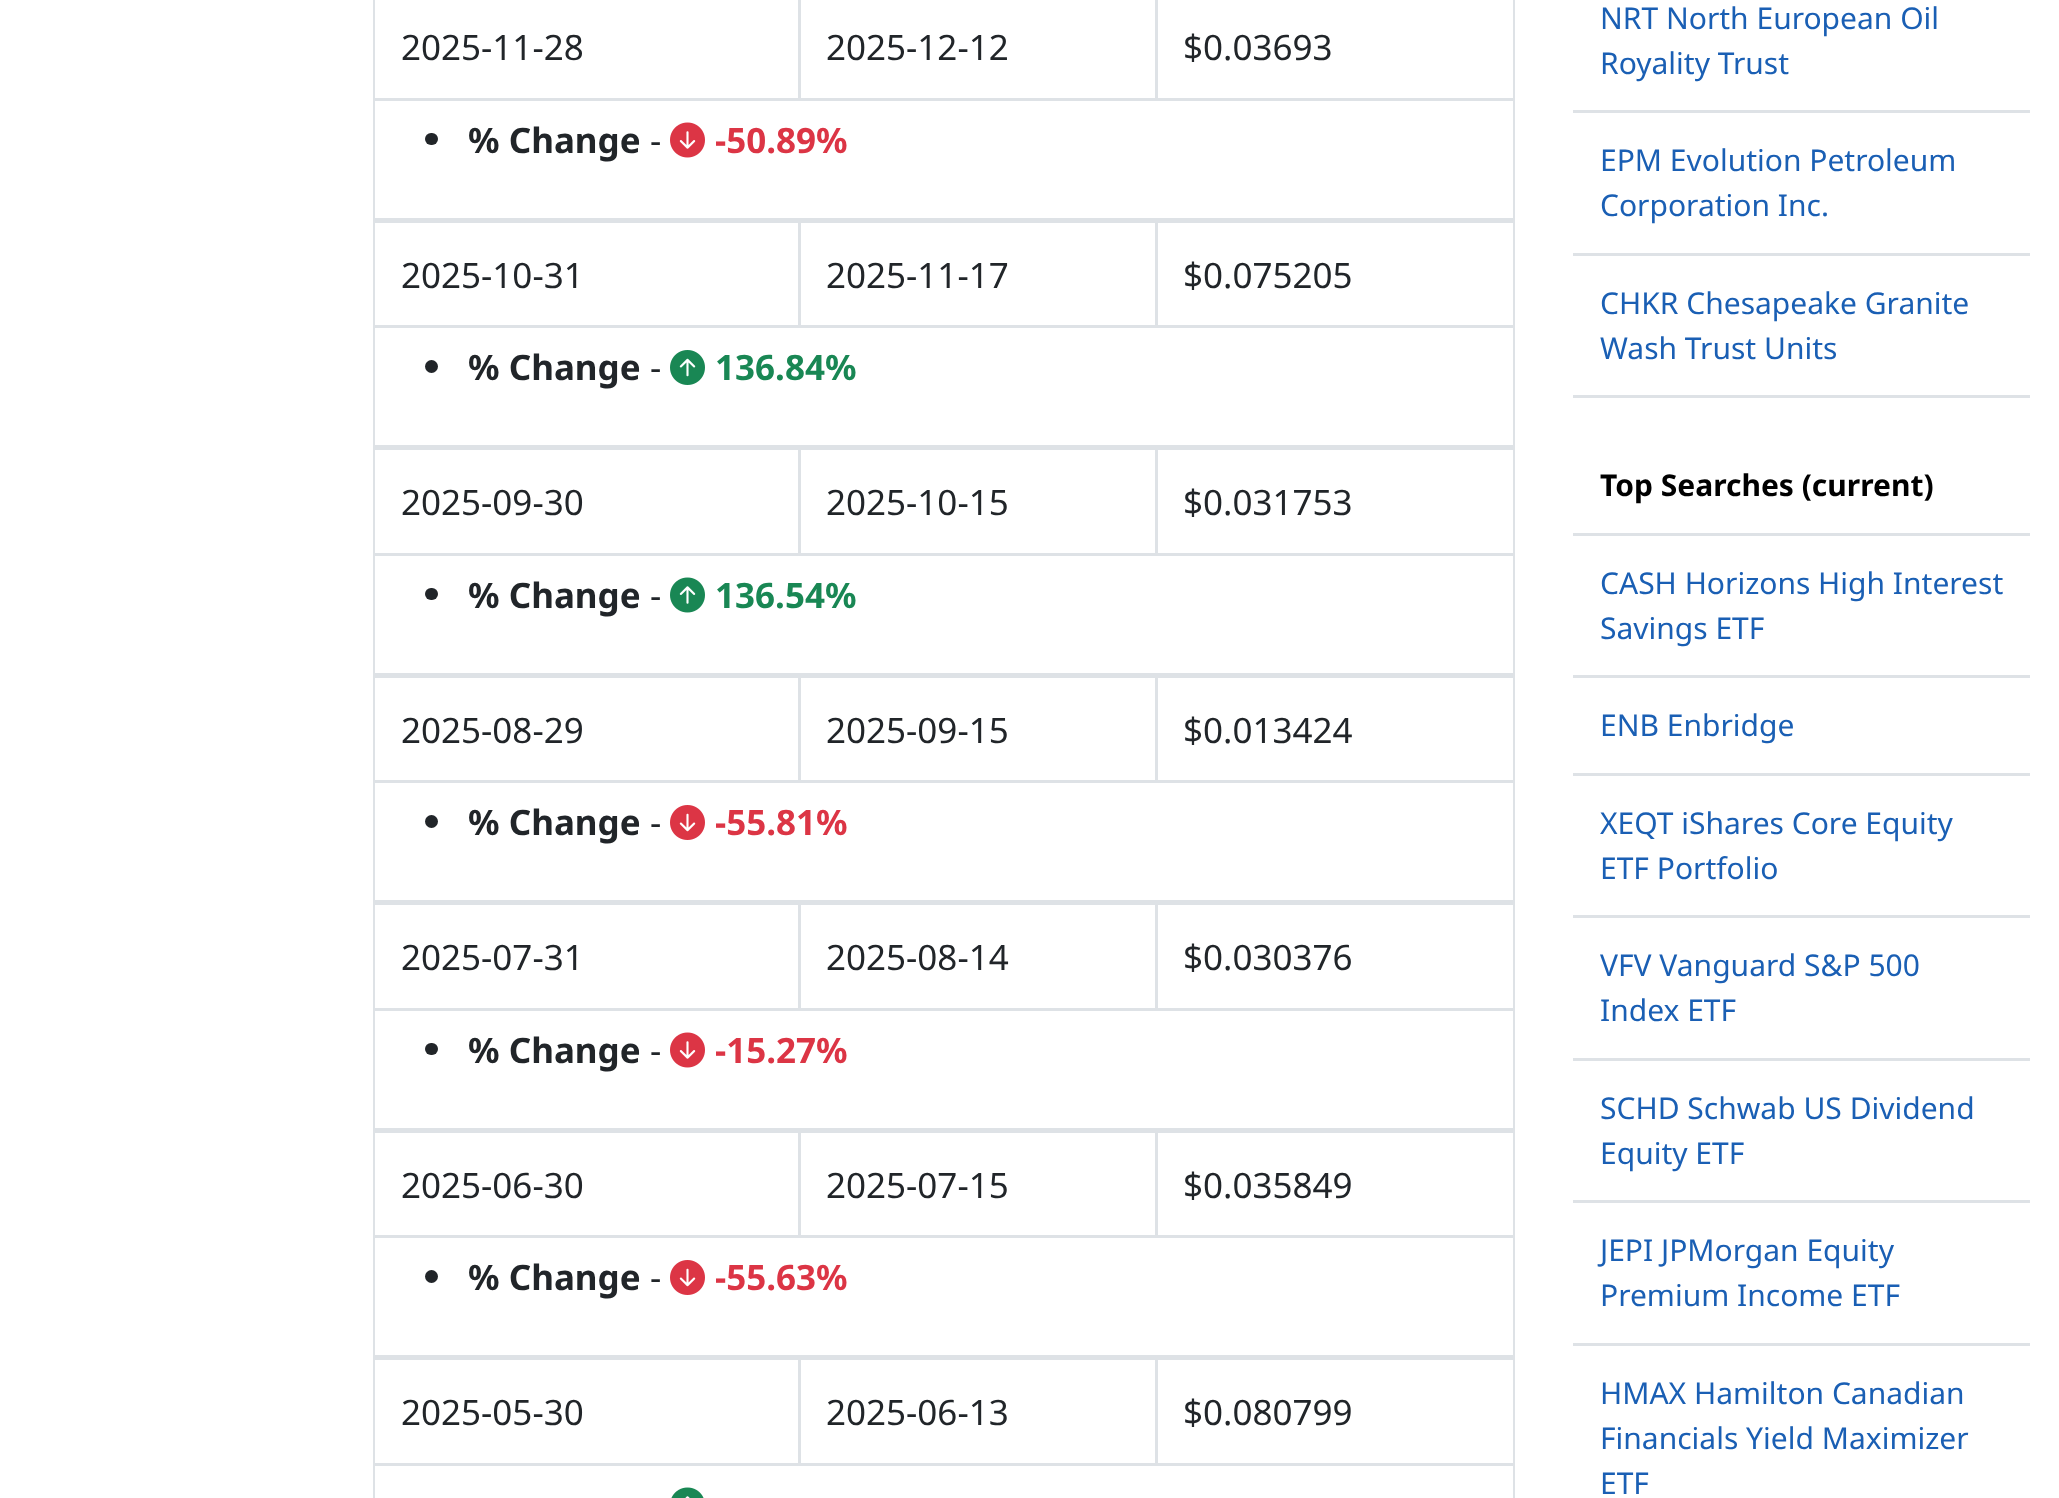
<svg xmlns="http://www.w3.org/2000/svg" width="2059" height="1498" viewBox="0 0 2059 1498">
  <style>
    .t1 { font: 35px Noto Sans; fill: #212529; }
    .t2 { font: bold 35px Noto Sans; fill: #212529; }
    .t3 { font: bold 35px Noto Sans; fill: #dc3545; }
    .t4 { font: bold 35px Noto Sans; fill: #198754; }
    .t5 { font: 30px Noto Sans; fill: #1a5fb4; }
    .t6 { font: bold 30px Noto Sans; fill: #000; }
  </style>
  <rect width="100%" height="100%" fill="#fff"/>
  <rect x="374.5" y="-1.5" width="1139" height="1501" fill="none" stroke="#dee2e6" stroke-width="3"/>
  <rect x="375" y="0" width="1138" height="1355" fill="#fff"/>
  <rect x="375" y="218" width="1138" height="5" fill="#dee2e6"/>
  <rect x="798" y="0" width="3" height="98" fill="#dee2e6"/>
  <text x="401" y="60" class="t1">2025-11-28</text>
  <rect x="1155" y="0" width="3" height="98" fill="#dee2e6"/>
  <text x="826" y="60" class="t1">2025-12-12</text>
  <text x="1183" y="60" class="t1">$0.03693</text>
  <rect x="375" y="98" width="1138" height="3" fill="#dee2e6"/>
  <rect x="425" y="133" width="13" height="12" rx="6" fill="#212529"/>
  <text x="468" y="153" class="t2">% Change</text>
  <text x="650" y="153" class="t1">-</text>
  <image x="670" y="122" width="35" height="36" href="images/1.png"/>
  <text x="715" y="153" class="t3">-50.89%</text>
  <rect x="375" y="445" width="1138" height="5" fill="#dee2e6"/>
  <rect x="798" y="223" width="3" height="102" fill="#dee2e6"/>
  <text x="401" y="288" class="t1">2025-10-31</text>
  <rect x="1155" y="223" width="3" height="102" fill="#dee2e6"/>
  <text x="826" y="288" class="t1">2025-11-17</text>
  <text x="1183" y="288" class="t1">$0.075205</text>
  <rect x="375" y="325" width="1138" height="3" fill="#dee2e6"/>
  <circle cx="431.5" cy="366.5" r="6.5" fill="#212529"/>
  <text x="468" y="380" class="t2">% Change</text>
  <text x="650" y="380" class="t1">-</text>
  <image x="670" y="350" width="35" height="35" href="images/2.png"/>
  <text x="715" y="380" class="t4">136.84%</text>
  <rect x="375" y="673" width="1138" height="5" fill="#dee2e6"/>
  <rect x="798" y="450" width="3" height="103" fill="#dee2e6"/>
  <text x="401" y="515" class="t1">2025-09-30</text>
  <rect x="1155" y="450" width="3" height="103" fill="#dee2e6"/>
  <text x="826" y="515" class="t1">2025-10-15</text>
  <text x="1183" y="515" class="t1">$0.031753</text>
  <rect x="375" y="553" width="1138" height="3" fill="#dee2e6"/>
  <rect x="425" y="588" width="13" height="12" rx="6" fill="#212529"/>
  <text x="468" y="608" class="t2">% Change</text>
  <text x="650" y="608" class="t1">-</text>
  <image x="670" y="577" width="35" height="36" href="images/3.png"/>
  <text x="715" y="608" class="t4">136.54%</text>
  <rect x="375" y="900" width="1138" height="5" fill="#dee2e6"/>
  <rect x="798" y="678" width="3" height="102" fill="#dee2e6"/>
  <text x="401" y="743" class="t1">2025-08-29</text>
  <rect x="1155" y="678" width="3" height="102" fill="#dee2e6"/>
  <text x="826" y="743" class="t1">2025-09-15</text>
  <text x="1183" y="743" class="t1">$0.013424</text>
  <rect x="375" y="780" width="1138" height="3" fill="#dee2e6"/>
  <circle cx="431.5" cy="821.5" r="6.5" fill="#212529"/>
  <text x="468" y="835" class="t2">% Change</text>
  <text x="650" y="835" class="t1">-</text>
  <image x="670" y="805" width="35" height="35" href="images/4.png"/>
  <text x="715" y="835" class="t3">-55.81%</text>
  <rect x="375" y="1128" width="1138" height="5" fill="#dee2e6"/>
  <rect x="798" y="905" width="3" height="103" fill="#dee2e6"/>
  <text x="401" y="970" class="t1">2025-07-31</text>
  <rect x="1155" y="905" width="3" height="103" fill="#dee2e6"/>
  <text x="826" y="970" class="t1">2025-08-14</text>
  <text x="1183" y="970" class="t1">$0.030376</text>
  <rect x="375" y="1008" width="1138" height="3" fill="#dee2e6"/>
  <rect x="425" y="1043" width="13" height="12" rx="6" fill="#212529"/>
  <text x="468" y="1063" class="t2">% Change</text>
  <text x="650" y="1063" class="t1">-</text>
  <image x="670" y="1032" width="35" height="36" href="images/1.png"/>
  <text x="715" y="1063" class="t3">-15.27%</text>
  <rect x="375" y="1355" width="1138" height="5" fill="#dee2e6"/>
  <rect x="798" y="1133" width="3" height="102" fill="#dee2e6"/>
  <text x="401" y="1198" class="t1">2025-06-30</text>
  <rect x="1155" y="1133" width="3" height="102" fill="#dee2e6"/>
  <text x="826" y="1198" class="t1">2025-07-15</text>
  <text x="1183" y="1198" class="t1">$0.035849</text>
  <rect x="375" y="1235" width="1138" height="3" fill="#dee2e6"/>
  <circle cx="431.5" cy="1276.5" r="6.5" fill="#212529"/>
  <text x="468" y="1290" class="t2">% Change</text>
  <text x="650" y="1290" class="t1">-</text>
  <image x="670" y="1260" width="35" height="35" href="images/4.png"/>
  <text x="715" y="1290" class="t3">-55.63%</text>
  <rect x="375" y="1360" width="1138" height="138" fill="#fff"/>
  <rect x="798" y="1360" width="3" height="103" fill="#dee2e6"/>
  <text x="401" y="1425" class="t1">2025-05-30</text>
  <rect x="1155" y="1360" width="3" height="103" fill="#dee2e6"/>
  <text x="826" y="1425" class="t1">2025-06-13</text>
  <text x="1183" y="1425" class="t1">$0.080799</text>
  <rect x="375" y="1463" width="1138" height="3" fill="#dee2e6"/>
  <image x="671" y="1487" width="33" height="11" href="images/5.png"/>
  <rect x="1573" y="110" width="457" height="3" fill="#dee2e6"/>
  <text x="1600" y="29" class="t5">NRT North European Oil</text>
  <text x="1600" y="74" class="t5">Royality Trust</text>
  <rect x="1573" y="253" width="457" height="3" fill="#dee2e6"/>
  <text x="1600" y="171" class="t5">EPM Evolution Petroleum</text>
  <text x="1600" y="216" class="t5">Corporation Inc.</text>
  <rect x="1573" y="395" width="457" height="3" fill="#dee2e6"/>
  <text x="1600" y="314" class="t5">CHKR Chesapeake Granite</text>
  <text x="1600" y="359" class="t5">Wash Trust Units</text>
  <rect x="1573" y="533" width="457" height="3" fill="#dee2e6"/>
  <text x="1600" y="496" class="t6">Top Searches (current)</text>
  <rect x="1573" y="675" width="457" height="3" fill="#dee2e6"/>
  <text x="1600" y="594" class="t5">CASH Horizons High Interest</text>
  <text x="1600" y="639" class="t5">Savings ETF</text>
  <rect x="1573" y="773" width="457" height="3" fill="#dee2e6"/>
  <text x="1600" y="736" class="t5">ENB Enbridge</text>
  <rect x="1573" y="915" width="457" height="3" fill="#dee2e6"/>
  <text x="1600" y="834" class="t5">XEQT iShares Core Equity</text>
  <text x="1600" y="879" class="t5">ETF Portfolio</text>
  <rect x="1573" y="1058" width="457" height="3" fill="#dee2e6"/>
  <text x="1600" y="976" class="t5">VFV Vanguard S&amp;P 500</text>
  <text x="1600" y="1021" class="t5">Index ETF</text>
  <rect x="1573" y="1200" width="457" height="3" fill="#dee2e6"/>
  <text x="1600" y="1119" class="t5">SCHD Schwab US Dividend</text>
  <text x="1600" y="1164" class="t5">Equity ETF</text>
  <rect x="1573" y="1343" width="457" height="3" fill="#dee2e6"/>
  <text x="1600" y="1261" class="t5">JEPI JPMorgan Equity</text>
  <text x="1600" y="1306" class="t5">Premium Income ETF</text>
  <text x="1600" y="1404" class="t5">HMAX Hamilton Canadian</text>
  <text x="1600" y="1449" class="t5">Financials Yield Maximizer</text>
  <text x="1600" y="1494" class="t5">ETF</text>
</svg>
